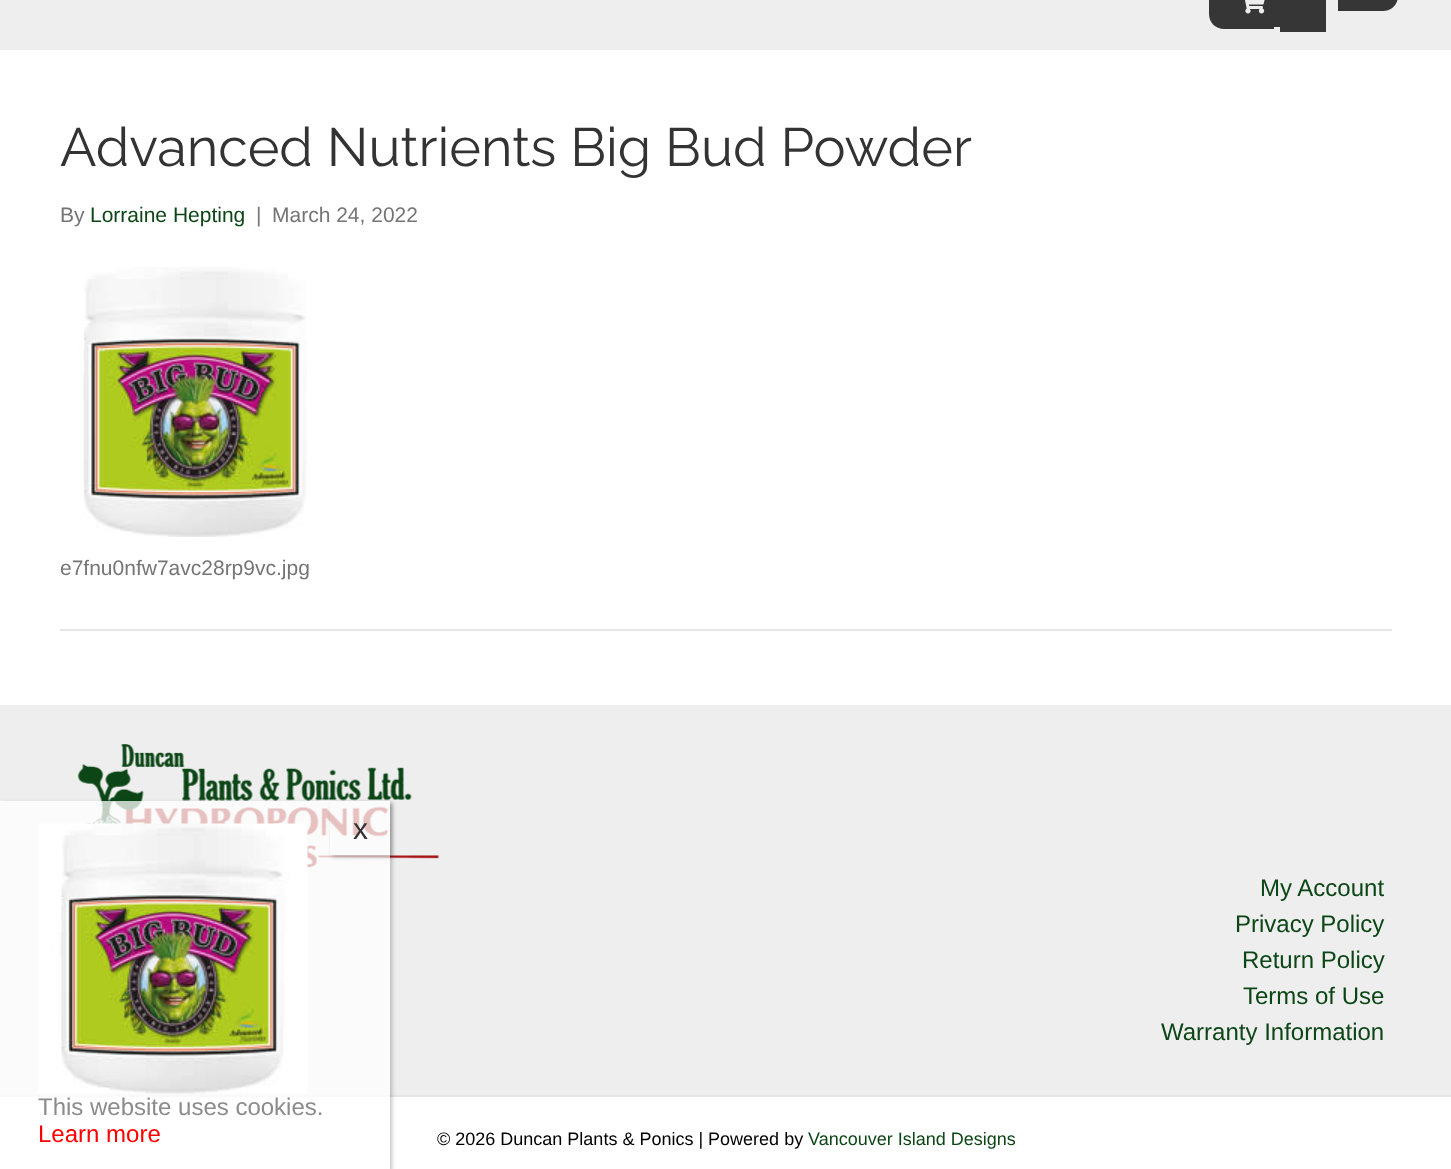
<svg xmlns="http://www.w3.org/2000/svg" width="1451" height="1169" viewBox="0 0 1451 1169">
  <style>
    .t1 { font: 100 54px Raleway; fill: #333; }
    .t2 { font: 21px Liberation Sans; fill: #757575; }
    .t3 { font: 21px Liberation Sans; fill: #0c4616; }
    .t4 { font: 24px Liberation Sans; fill: #0c4616; }
    .t5 { font: 18px Liberation Sans; fill: #000; }
    .t6 { font: 18px Liberation Sans; fill: #0c4616; }
    .t7 { font: 30px Liberation Sans; fill: #333; }
    .t8 { font: 24px Liberation Sans; fill: #8c8c8c; }
    .t9 { font: 24px Liberation Sans; fill: #f00; }
  </style>
  <defs>
    <clipPath id="clip1"><path d="M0 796H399V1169H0ZM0 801H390V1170H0Z" clip-rule="evenodd"/></clipPath>
    <clipPath id="clip2"><path d="M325 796H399V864H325ZM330 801H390V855H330Z" clip-rule="evenodd"/></clipPath>
  </defs>
  <rect width="100%" height="100%" fill="#fff"/>
  <rect x="0" y="0" width="1451" height="50" fill="#eee"/>
  <path d="M1224-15H1274V29H1224C1215.5 29 1209 22.5 1209 14V0C1209-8.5 1215.5-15 1224-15Z" fill="#363636"/>
  <rect x="1274" y="0" width="6" height="27" fill="#363636"/>
  <rect x="1280" y="0" width="46" height="32" fill="#363636"/>
  <path d="M1338-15H1383C1391.5-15 1398-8.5 1398 0V-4C1398 4.5 1391.5 11 1383 11H1338Z" fill="#363636"/>
  <image x="1245" y="0" width="20" height="14" href="images/1.png"/>
  <text x="60" y="166" class="t1">Advanced Nutrients Big Bud Powder</text>
  <text x="60" y="222" class="t2">By</text>
  <text x="90" y="222" class="t3">Lorraine Hepting</text>
  <text x="256" y="222" class="t2">|</text>
  <text x="272" y="222" class="t2">March 24, 2022</text>
  <image x="82" y="267" width="225" height="270" href="images/2.png"/>
  <text x="60" y="575" class="t2">e7fnu0nfw7avc28rp9vc.jpg</text>
  <rect x="60" y="629" width="1332" height="2" fill="#e6e6e6"/>
  <rect x="0" y="705" width="1451" height="390" fill="#eee"/>
  <image x="77" y="744" width="362" height="124" href="images/3.png"/>
  <text x="1260" y="896" class="t4">My Account</text>
  <text x="1235" y="932" class="t4">Privacy Policy</text>
  <text x="1242" y="968" class="t4">Return Policy</text>
  <text x="1243" y="1004" class="t4">Terms of Use</text>
  <text x="1161" y="1040" class="t4">Warranty Information</text>
  <rect x="0" y="1095" width="1451" height="2" fill="#e6e6e6"/>
  <text x="437" y="1145" class="t5">© 2026 Duncan Plants &amp; Ponics | Powered by</text>
  <text x="808" y="1145" class="t6">Vancouver Island Designs</text>
  <g clip-path="url(#clip1)">
    <rect x="2" y="803" width="390" height="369" fill="#0202023b" filter="blur(2px)"/>
  </g>
  <rect x="0" y="801" width="390" height="296" fill="#ffffffbf"/>
  <g clip-path="url(#clip2)">
    <rect x="332" y="803" width="60" height="54" fill="#0202023b" filter="blur(2px)"/>
  </g>
  <text x="353" y="839" class="t7">x</text>
  <image x="38" y="823" width="270" height="271" href="images/4.png"/>
  <text x="38" y="1115" class="t8">This website uses cookies.</text>
  <text x="38" y="1142" class="t9">Learn more</text>
</svg>
